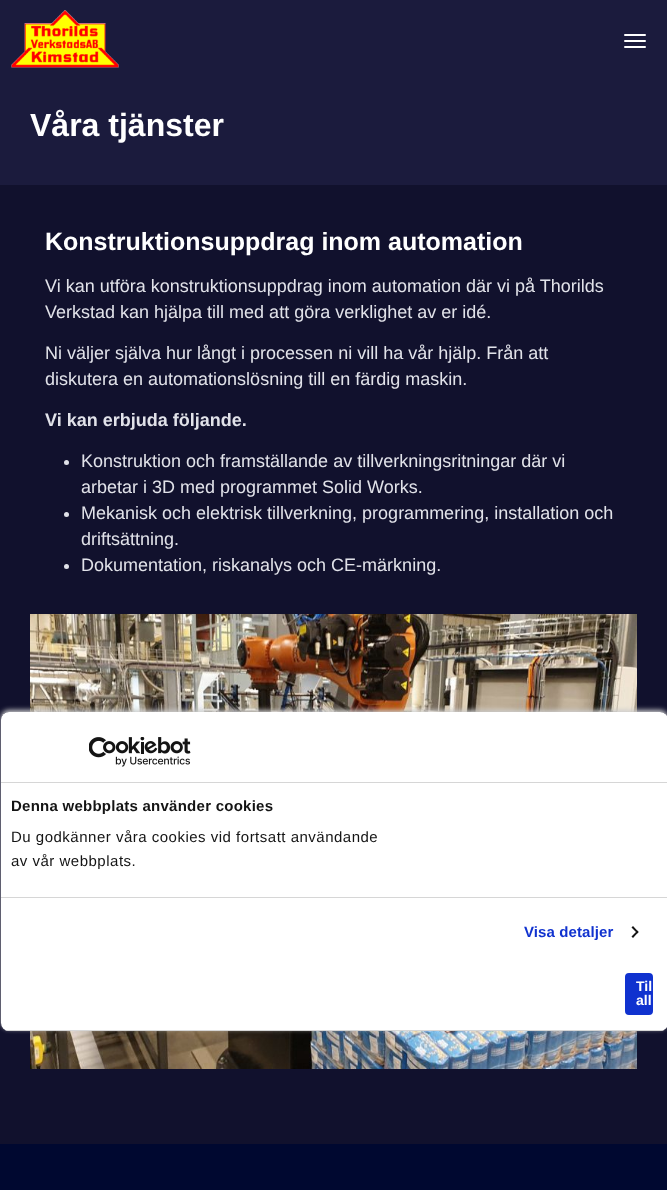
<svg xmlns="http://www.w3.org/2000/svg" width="667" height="1190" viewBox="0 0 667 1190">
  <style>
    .t1 { font: bold 32px Arimo; fill: #fff; }
    .t2 { font: bold 25px Arimo; fill: #fff; }
    .t3 { font: 18px Arimo; fill: #e1e2e9; }
    .t4 { font: bold 18px Arimo; fill: #e1e2e9; }
    .t5 { font: bold 15px Liberation Sans; letter-spacing: 0.25px; fill: #141414; }
    .t6 { font: 15px Liberation Sans; letter-spacing: 0.5px; fill: #141414; }
    .t7 { font: bold 15px Liberation Sans; letter-spacing: 0.1px; fill: #1032cf; }
    .t8 { font: bold 14px Liberation Sans; fill: #fff; }
  </style>
  <defs>
    <clipPath id="clip1"><path d="M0 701H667V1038H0ZM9 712H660C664.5 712 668 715.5 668 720V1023C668 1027.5 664.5 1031 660 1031H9C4.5 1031 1 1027.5 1 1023V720C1 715.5 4.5 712 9 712Z" clip-rule="evenodd"/></clipPath>
    <clipPath id="clip2"><rect x="1" y="712" width="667" height="319" rx="8"/></clipPath>
  </defs>
  <rect width="100%" height="100%" fill="#11112d"/>
  <rect x="0" y="0" width="667" height="185" fill="#1b1b3d"/>
  <image x="11" y="10" width="108" height="58" href="images/1.png"/>
  <rect x="624" y="34" width="22" height="2" rx="1" fill="#fff"/>
  <rect x="624" y="40" width="22" height="2" rx="1" fill="#fff"/>
  <rect x="624" y="46" width="22" height="2" rx="1" fill="#fff"/>
  <text x="30" y="136" class="t1">Våra tjänster</text>
  <text x="45" y="250" class="t2">Konstruktionsuppdrag inom automation</text>
  <text x="45" y="292" class="t3">Vi kan utföra konstruktionsuppdrag inom automation där vi på Thorilds</text>
  <text x="45" y="318" class="t3">Verkstad kan hjälpa till med att göra verklighet av er idé.</text>
  <text x="45" y="359" class="t3">Ni väljer själva hur långt i processen ni vill ha vår hjälp. Från att</text>
  <text x="45" y="385" class="t3">diskutera en automationslösning till en färdig maskin.</text>
  <text x="45" y="426" class="t4">Vi kan erbjuda följande.</text>
  <circle cx="66.5" cy="462.5" r="2.5" fill="#e1e2e9"/>
  <text x="81" y="467" class="t3">Konstruktion och framställande av tillverkningsritningar där vi</text>
  <text x="81" y="493" class="t3">arbetar i 3D med programmet Solid Works.</text>
  <circle cx="66.5" cy="514.5" r="2.5" fill="#e1e2e9"/>
  <text x="81" y="519" class="t3">Mekanisk och elektrisk tillverkning, programmering, installation och</text>
  <text x="81" y="545" class="t3">driftsättning.</text>
  <circle cx="66.5" cy="566.5" r="2.5" fill="#e1e2e9"/>
  <text x="81" y="571" class="t3">Dokumentation, riskanalys och CE-märkning.</text>
  <image x="30" y="614" width="607" height="455" href="images/2.png"/>
  <rect x="0" y="1144" width="667" height="46" fill="#000830"/>
  <g clip-path="url(#clip1)">
    <rect x="1" y="710" width="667" height="319" rx="8" fill="#ccc" filter="blur(2.5px)"/>
  </g>
  <rect x="1" y="712" width="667" height="319" rx="8" fill="#fff"/>
  <rect x="1" y="782" width="666" height="1" fill="#d6d6d6"/>
  <image x="89" y="737" width="102" height="30" href="images/3.png"/>
  <rect x="1" y="897" width="666" height="1" fill="#d6d6d6"/>
  <text x="11" y="811" class="t5">Denna webbplats använder cookies</text>
  <text x="11" y="842" class="t6">Du godkänner våra cookies vid fortsatt användande</text>
  <text x="11" y="866" class="t6">av vår webbplats.</text>
  <text x="524" y="937" class="t7">Visa detaljer</text>
  <path d="M633 926L638.5 932L637.5 933.5L631.5 927.5Z" fill="#141414"/>
  <path d="M637.5 930.5L638.5 932L633 938L631.5 936.5Z" fill="#141414"/>
  <g clip-path="url(#clip2)">
    <rect x="1" y="1030" width="666" height="1" fill="#d6d6d6"/>
  </g>
  <rect x="626" y="974" width="26" height="40" rx="3" fill="#1032cf" stroke="#1032cf" stroke-width="2"/>
  <text x="636" y="991" class="t8">Til</text>
  <text x="636" y="1005" class="t8">all</text>
</svg>
